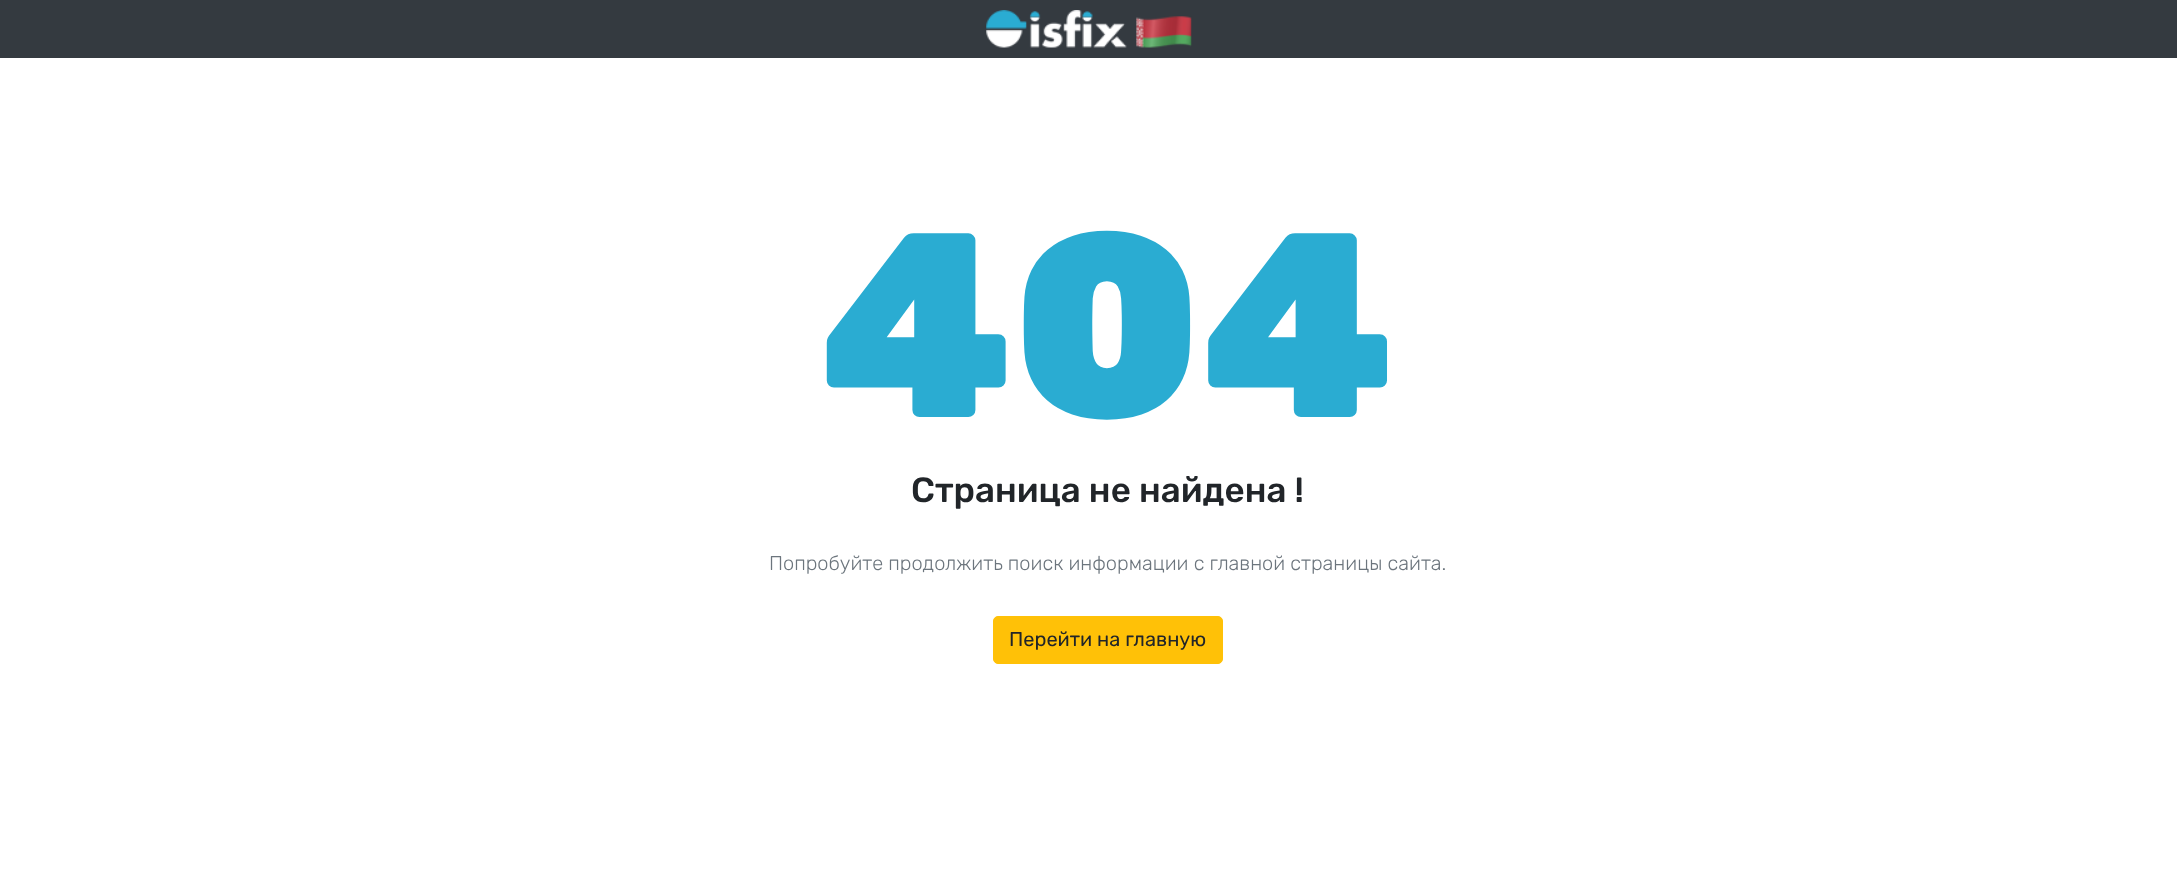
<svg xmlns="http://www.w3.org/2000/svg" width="2177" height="877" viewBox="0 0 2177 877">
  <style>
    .t1 { font: 900 262.5px Rubik; fill: #2aacd2; }
    .t2 { font: 500 35px Rubik; fill: #212529; }
    .t3 { font: 300 20px Rubik; fill: #6c757d; }
    .t4 { font: 20px Rubik; fill: #212529; }
  </style>
  <rect width="100%" height="100%" fill="#fff"/>
  <rect x="0" y="0" width="2177" height="58" fill="#343a40"/>
  <image x="986" y="10" width="206" height="38" href="images/1.png"/>
  <text x="820" y="417" class="t1">404</text>
  <text x="911" y="502" class="t2">Страница не найдена !</text>
  <text x="769" y="570" class="t3">Попробуйте продолжить поиск информации с главной страницы сайта.</text>
  <rect x="993.5" y="616.5" width="229" height="47" rx="4.5" fill="#ffc107" stroke="#ffc107"/>
  <text x="1009" y="646" class="t4">Перейти на главную</text>
</svg>
